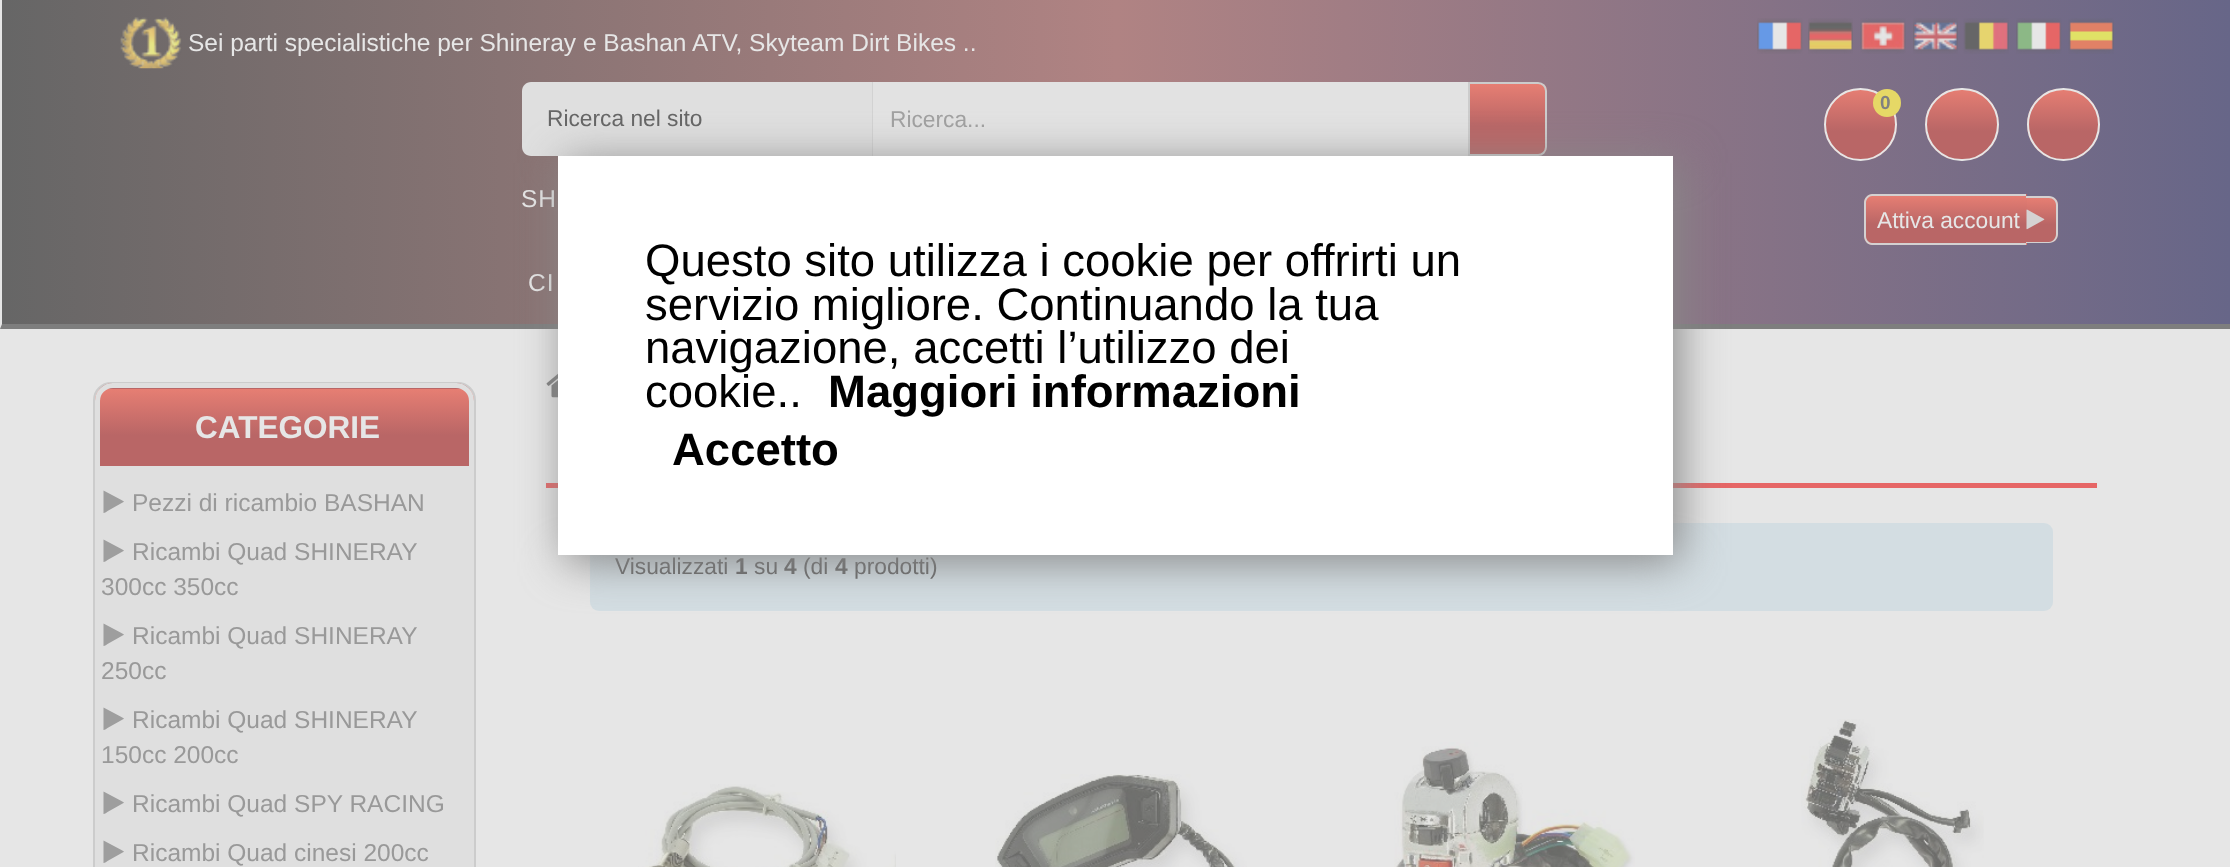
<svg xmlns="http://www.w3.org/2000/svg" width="2230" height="867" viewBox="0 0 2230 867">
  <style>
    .t1 { font: 24.5px Liberation Sans; fill: #e6e6e6; }
    .t2 { font: 22.75px Liberation Sans; fill: #666; }
    .t3 { font: 22.75px Liberation Sans; fill: #a1a1a1; }
    .t4 { font: bold 19px Liberation Sans; fill: #808080; }
    .t5 { font: 22.75px Liberation Sans; fill: #e6e6e6; }
    .t6 { font: 24.5px Liberation Sans; letter-spacing: 1px; fill: #e6e6e6; }
    .t7 { font: bold 31.5px Liberation Sans; fill: #e6e6e6; }
    .t8 { font: 24.5px Liberation Sans; fill: #999; }
    .t9 { font: bold 22.75px Liberation Sans; fill: #666; }
    .t10 { font: 45.5px Liberation Sans; fill: #000; }
    .t11 { font: bold 45.5px Liberation Sans; fill: #000; }
  </style>
  <defs>
    <linearGradient id="g1" gradientUnits="userSpaceOnUse" x1="1.8" y1="163" x2="2230" y2="163"><stop offset="0" stop-color="#666"/><stop offset="0.5" stop-color="#b08383"/><stop offset="1" stop-color="#676688"/></linearGradient>
    <clipPath id="clip1"><path d="M1468 82H1538C1543 82 1547 86 1547 91V147C1547 152 1543 156 1538 156H1468Z"/></clipPath>
    <linearGradient id="g2" gradientUnits="userSpaceOnUse" x1="1508" y1="84" x2="1508" y2="154"><stop offset="0" stop-color="#e67e73"/><stop offset="0.6" stop-color="#b96666"/></linearGradient>
    <clipPath id="clip2"><rect x="1824" y="88" width="73" height="73" rx="36.5"/></clipPath>
    <linearGradient id="g3" gradientUnits="userSpaceOnUse" x1="1860" y1="89" x2="1860" y2="159"><stop offset="0" stop-color="#e67e73"/><stop offset="0.6" stop-color="#b96666"/></linearGradient>
    <clipPath id="clip3"><rect x="1925" y="88" width="74" height="73" rx="36.5"/></clipPath>
    <linearGradient id="g4" gradientUnits="userSpaceOnUse" x1="1962" y1="89" x2="1962" y2="159"><stop offset="0" stop-color="#e67e73"/><stop offset="0.6" stop-color="#b96666"/></linearGradient>
    <clipPath id="clip4"><rect x="2027" y="88" width="73" height="73" rx="36.5"/></clipPath>
    <linearGradient id="g5" gradientUnits="userSpaceOnUse" x1="2063" y1="89" x2="2063" y2="159"><stop offset="0" stop-color="#e67e73"/><stop offset="0.6" stop-color="#b96666"/></linearGradient>
    <clipPath id="clip5"><path d="M1873 194H2027V245H1873C1868 245 1864 241 1864 236V203C1864 198 1868 194 1873 194Z"/></clipPath>
    <linearGradient id="g6" gradientUnits="userSpaceOnUse" x1="1946" y1="149" x2="1946" y2="196"><stop offset="0" stop-color="#e67e73"/><stop offset="0.6" stop-color="#b96666"/></linearGradient>
    <linearGradient id="g7" gradientUnits="userSpaceOnUse" x1="1946" y1="196" x2="1946" y2="243"><stop offset="0" stop-color="#e67e73"/><stop offset="0.6" stop-color="#b96666"/></linearGradient>
    <linearGradient id="g8" gradientUnits="userSpaceOnUse" x1="1946" y1="243" x2="1946" y2="291"><stop offset="0" stop-color="#e67e73"/><stop offset="0.6" stop-color="#b96666"/></linearGradient>
    <clipPath id="clip6"><path d="M2027 196H2049C2054 196 2058 200 2058 205V234C2058 239 2054 243 2049 243H2027Z"/></clipPath>
    <linearGradient id="g9" gradientUnits="userSpaceOnUse" x1="2041" y1="198" x2="2041" y2="242"><stop offset="0" stop-color="#e67e73"/><stop offset="0.6" stop-color="#b96666"/></linearGradient>
    <clipPath id="clip7"><path d="M113 383H456C466 383 474 391 474 401V471H95V401C95 391 103 383 113 383Z"/></clipPath>
    <linearGradient id="g10" gradientUnits="userSpaceOnUse" x1="284" y1="312" x2="284" y2="389"><stop offset="0" stop-color="#e67e73"/><stop offset="0.6" stop-color="#b96666"/></linearGradient>
    <linearGradient id="g11" gradientUnits="userSpaceOnUse" x1="284" y1="389" x2="284" y2="466"><stop offset="0" stop-color="#e67e73"/><stop offset="0.6" stop-color="#b96666"/></linearGradient>
  </defs>
  <rect width="100%" height="100%" fill="#e6e6e6"/>
  <rect x="2" y="0" width="2228" height="324" fill="url(#g1)"/>
  <path d="M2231 329H0L2 324H2230Z" fill="#7e7e7e"/>
  <image x="120" y="17" width="62" height="52" href="images/1.png"/>
  <text x="188" y="51" class="t1">Sei parti specialistiche per Shineray e Bashan ATV, Skyteam Dirt Bikes ..</text>
  <image x="1757" y="18" width="46" height="36" href="images/2.png"/>
  <image x="1808" y="18" width="45" height="36" href="images/3.png"/>
  <image x="1860" y="18" width="46" height="36" href="images/4.png"/>
  <image x="1913" y="18" width="45" height="36" href="images/5.png"/>
  <image x="1963" y="18" width="46" height="36" href="images/6.png"/>
  <image x="2016" y="18" width="46" height="36" href="images/7.png"/>
  <image x="2068" y="18" width="46" height="36" href="images/8.png"/>
  <rect x="872" y="82" width="1" height="74" fill="#d2d2d2"/>
  <path d="M531 82H872V156H531C526 156 522 152 522 147V91C522 86 526 82 531 82Z" fill="#dfdfdf"/>
  <text x="547" y="126" class="t2">Ricerca nel sito</text>
  <rect x="873" y="82" width="595" height="74" fill="#e2e2e2"/>
  <text x="890" y="127" class="t3">Ricerca...</text>
  <g clip-path="url(#clip1)">
    <rect x="1470" y="84" width="77" height="70" fill="url(#g2)"/>
  </g>
  <path d="M1469 83H1538C1542.5 83 1546 86.5 1546 91V147C1546 151.5 1542.5 155 1538 155H1469Z" fill="none" stroke="#ccc" stroke-width="2"/>
  <g clip-path="url(#clip2)">
    <rect x="1824" y="89" width="73" height="70" fill="url(#g3)"/>
  </g>
  <circle cx="1860.5" cy="124.5" r="35.5" fill="none" stroke="#e6e6e6" stroke-width="2"/>
  <circle cx="1887" cy="103" r="14" fill="#e6d866"/>
  <text x="1880" y="109" class="t4">0</text>
  <g clip-path="url(#clip3)">
    <rect x="1925" y="89" width="74" height="70" fill="url(#g4)"/>
  </g>
  <rect x="1926" y="89" width="72" height="71" rx="35.5" fill="none" stroke="#e6e6e6" stroke-width="2"/>
  <g clip-path="url(#clip4)">
    <rect x="2027" y="89" width="73" height="70" fill="url(#g5)"/>
  </g>
  <circle cx="2063.5" cy="124.5" r="35.5" fill="none" stroke="#e6e6e6" stroke-width="2"/>
  <g clip-path="url(#clip5)">
    <rect x="1864" y="194" width="163" height="2" fill="url(#g6)"/>
    <rect x="1864" y="196" width="163" height="47" fill="url(#g7)"/>
    <rect x="1864" y="243" width="163" height="2" fill="url(#g8)"/>
  </g>
  <path d="M1872 194H2026V245H1872C1868 245 1864 241 1864 236V203C1864 198 1868 194 1872 194ZM1872 196H2026V243H1872C1869 243 1866 240 1866 236V203C1866 199 1869 196 1872 196Z" fill="#d4d1d1" fill-rule="evenodd"/>
  <g clip-path="url(#clip6)">
    <rect x="2027" y="198" width="31" height="44" fill="url(#g9)"/>
  </g>
  <path d="M2026 196H2049C2054 196 2058 200 2058 205V234C2058 239 2054 243 2049 243H2026ZM2026 198H2049C2053 198 2056 201 2056 205V234C2056 238 2053 242 2049 242H2026Z" fill="#d4d1d1" fill-rule="evenodd"/>
  <text x="1877" y="228" class="t5">Attiva account</text>
  <image x="2026" y="209" width="19" height="21" href="images/9.png"/>
  <text x="521" y="207" class="t6">SH</text>
  <text x="528" y="291" class="t6">CI</text>
  <rect x="94" y="383" width="381" height="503" rx="17" fill="#dfdfdf" stroke="#ccc" stroke-width="2"/>
  <g clip-path="url(#clip7)">
    <rect x="95" y="383" width="379" height="6" fill="url(#g10)"/>
    <rect x="95" y="389" width="379" height="77" fill="url(#g11)"/>
  </g>
  <path d="M113 385.5H456C464.5 385.5 471.5 392.5 471.5 401V468.5H97.5V401C97.5 392.5 104.5 385.5 113 385.5Z" fill="none" stroke="#dfdfdf" stroke-width="5"/>
  <text x="195" y="438" class="t7">CATEGORIE</text>
  <path d="M123.5 502L107.5 511C107 511.5 104 513.5 103.5 513V490.5L120.5 499.5L124 501.5Z" fill="#9e9e9e"/>
  <text x="132" y="511" class="t8">Pezzi di ricambio BASHAN</text>
  <path d="M123.5 551L107.5 560C107 560.5 104 562.5 103.5 562V539.5L120.5 548.5L124 550.5Z" fill="#9e9e9e"/>
  <text x="132" y="560" class="t8">Ricambi Quad SHINERAY</text>
  <text x="101" y="595" class="t8">300cc 350cc</text>
  <path d="M123.5 635L107.5 644C107 644.5 104 646.5 103.5 646V623.5L120.5 632.5L124 634.5Z" fill="#9e9e9e"/>
  <text x="132" y="644" class="t8">Ricambi Quad SHINERAY</text>
  <text x="101" y="679" class="t8">250cc</text>
  <path d="M123.5 719L107.5 728C107 728.5 104 730.5 103.5 730V707.5L120.5 716.5L124 718.5Z" fill="#9e9e9e"/>
  <text x="132" y="728" class="t8">Ricambi Quad SHINERAY</text>
  <text x="101" y="763" class="t8">150cc 200cc</text>
  <path d="M123.5 803L107.5 812C107 812.5 104 814.5 103.5 814V791.5L120.5 800.5L124 802.5Z" fill="#9e9e9e"/>
  <text x="132" y="812" class="t8">Ricambi Quad SPY RACING</text>
  <path d="M123.5 852L107.5 861C107 861.5 104 863.5 103.5 863V840.5L120.5 849.5L124 851.5Z" fill="#9e9e9e"/>
  <text x="132" y="861" class="t8">Ricambi Quad cinesi 200cc</text>
  <image x="546" y="373" width="12" height="25" href="images/10.png"/>
  <rect x="546" y="483" width="1551" height="5" fill="#e66666"/>
  <rect x="590" y="523" width="1463" height="88" rx="9" fill="#d3dde2"/>
  <text x="615" y="574" class="t2">Visualizzati</text>
  <text x="735" y="574" class="t9">1</text>
  <text x="754" y="574" class="t2">su</text>
  <text x="784" y="574" class="t9">4</text>
  <text x="803" y="574" class="t2">(di</text>
  <text x="835" y="574" class="t9">4</text>
  <text x="854" y="574" class="t2">prodotti)</text>
  <image x="638" y="784" width="258" height="83" href="images/11.png"/>
  <image x="995" y="774" width="252" height="93" href="images/12.png"/>
  <image x="1394" y="742" width="241" height="125" href="images/13.png"/>
  <image x="1801" y="719" width="183" height="148" href="images/14.png"/>
  <rect x="565" y="163" width="1115" height="399" fill="#888" filter="blur(22px)"/>
  <rect x="558" y="156" width="1115" height="399" fill="#fff"/>
  <text x="645" y="276" class="t10">Questo sito utilizza i cookie per offrirti un</text>
  <text x="645" y="320" class="t10">servizio migliore. Continuando la tua</text>
  <text x="645" y="363" class="t10">navigazione, accetti l’utilizzo dei</text>
  <text x="645" y="407" class="t10">cookie..</text>
  <text x="828" y="407" class="t11">Maggiori informazioni</text>
  <text x="672" y="465" class="t11">Accetto</text>
</svg>
